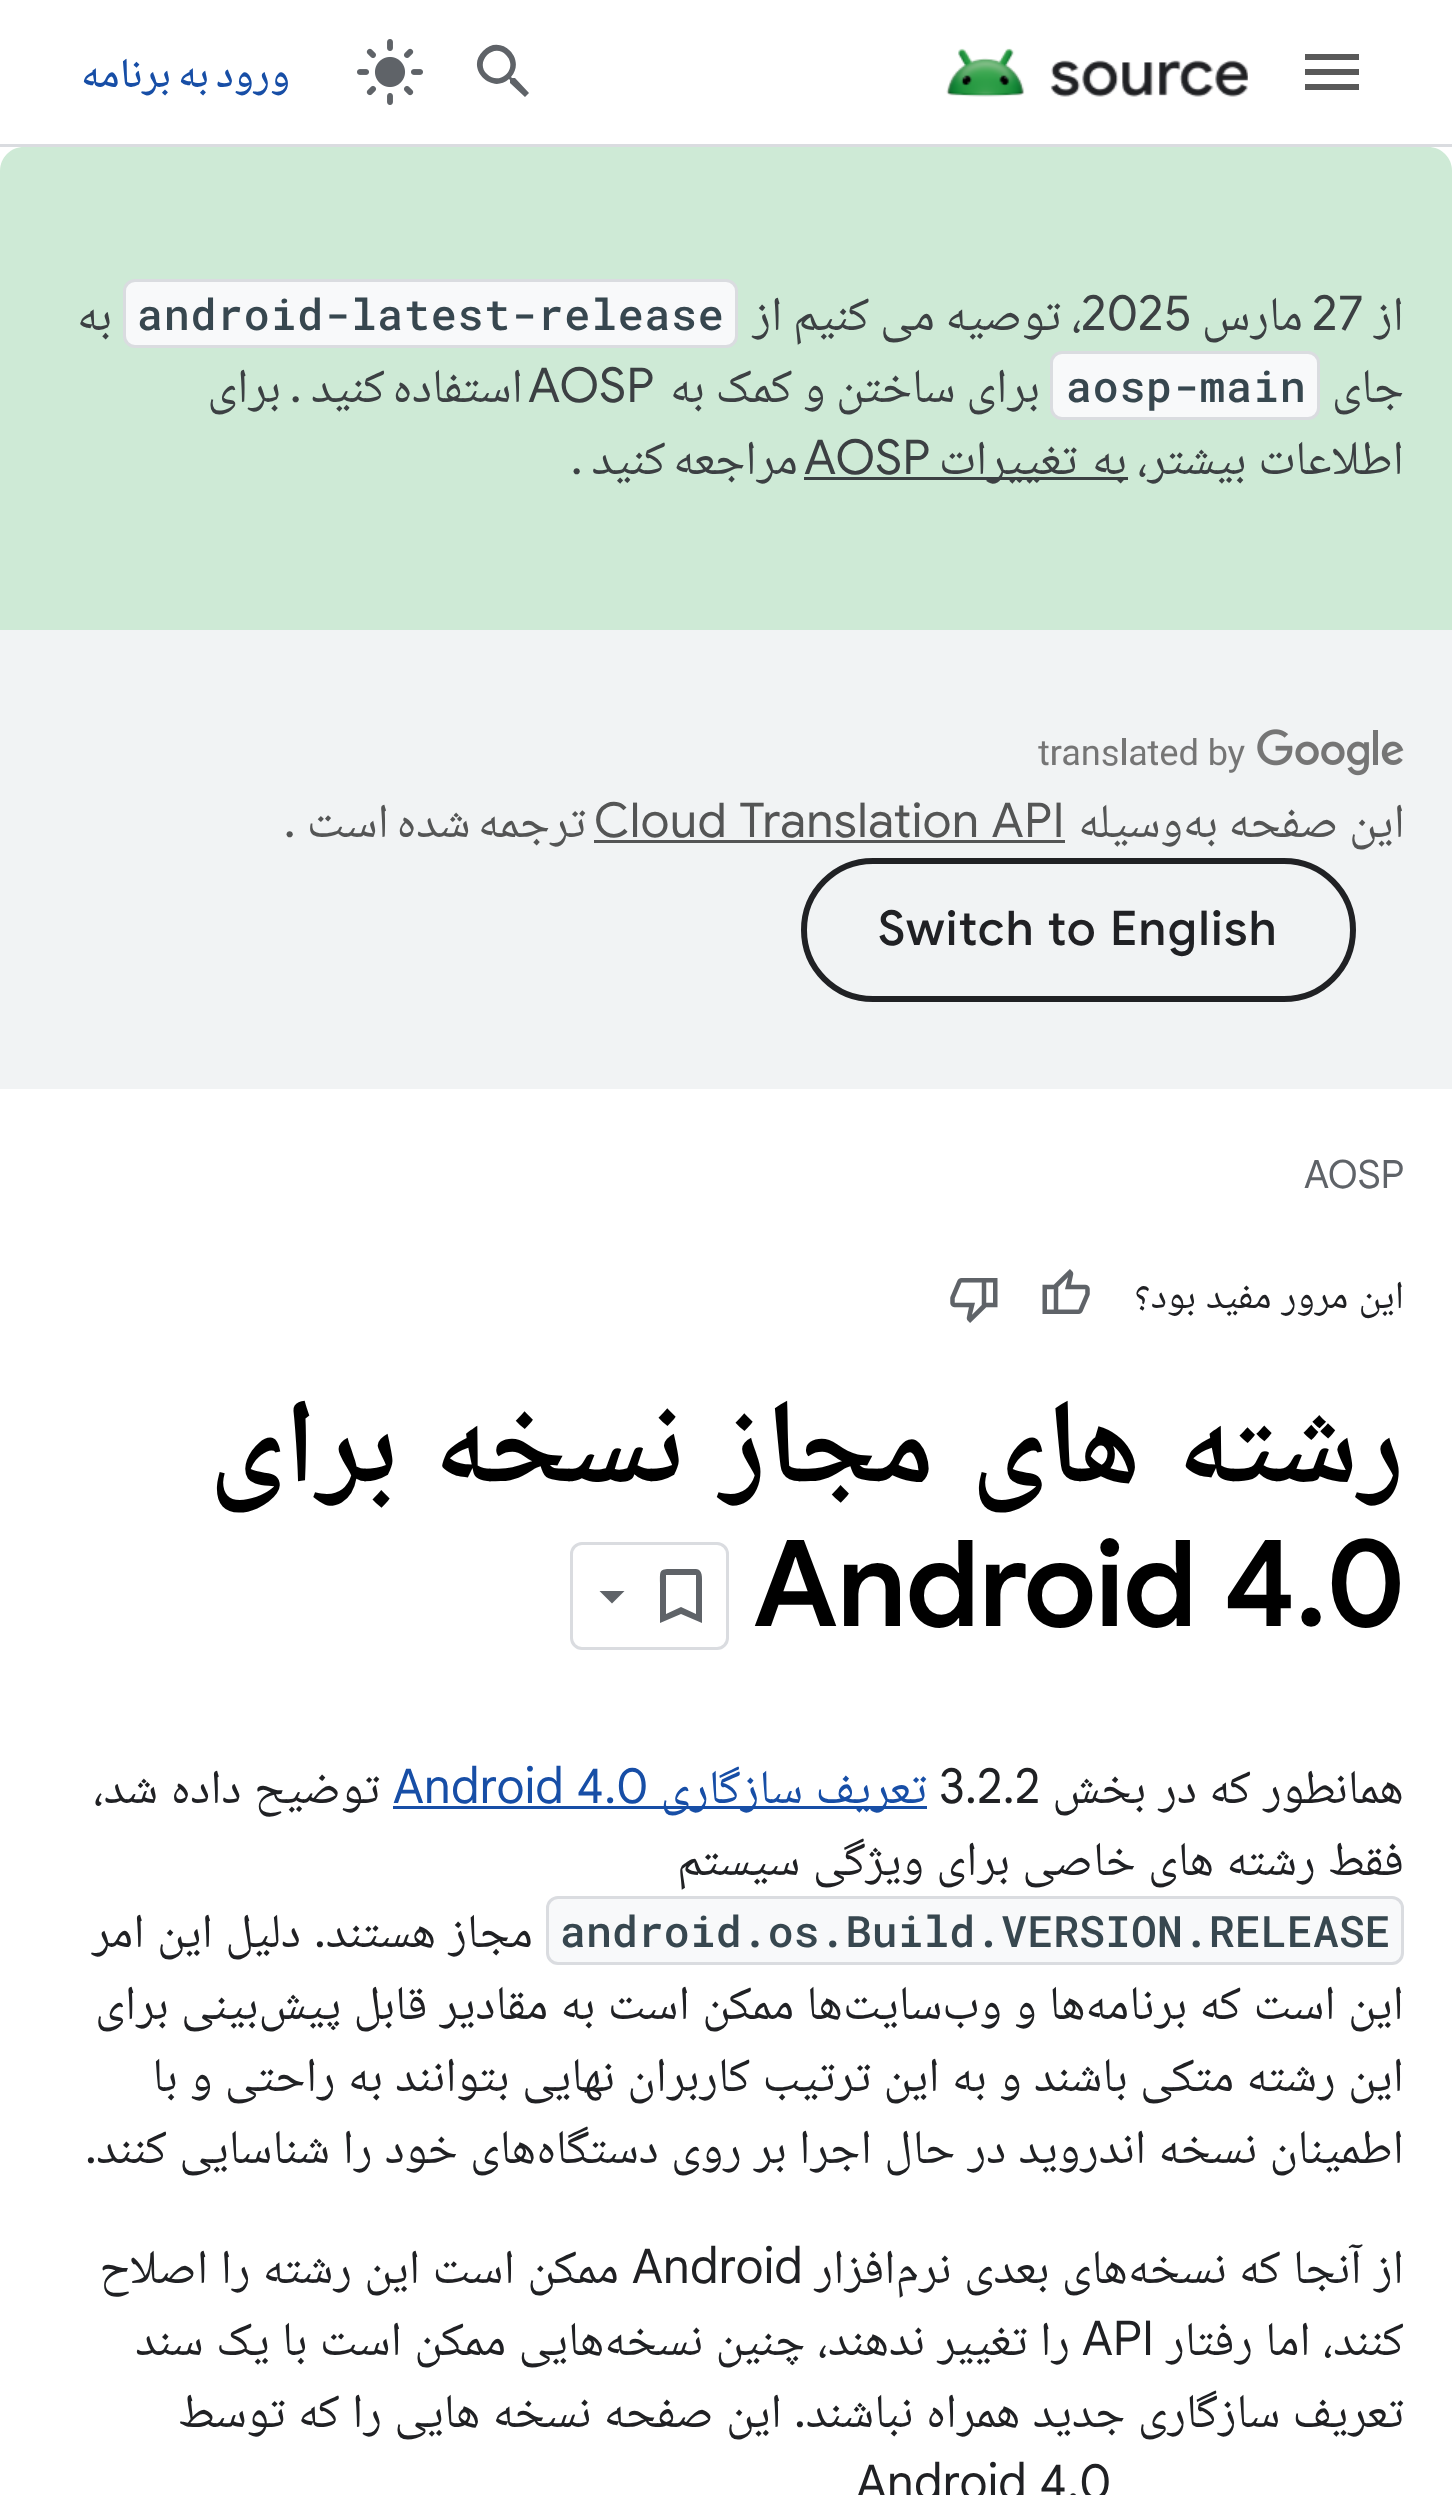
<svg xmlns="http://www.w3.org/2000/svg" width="1452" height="2495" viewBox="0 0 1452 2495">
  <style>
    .t1 { font: 500 42px Noto Naskh Arabic; letter-spacing: 0.75px; direction: rtl; fill: #174ea6; }
    .t2 { font: 48px Noto Naskh Arabic; letter-spacing: 0.75px; direction: rtl; fill: #3c4043; }
    .t3 { font: 48px Google Sans; letter-spacing: 0.75px; fill: #3c4043; }
    .t4 { font: 500 43.25px Roboto Mono; letter-spacing: 0.75px; fill: #37474f; }
    .t5 { font: 48px Google Sans; letter-spacing: 0.75px; direction: rtl; fill: #3c4043; }
    .t6 { font: 48px Noto Naskh Arabic; letter-spacing: 0.75px; direction: rtl; fill: #545555; }
    .t7 { font: 48px Google Sans; letter-spacing: 0.75px; fill: #545555; }
    .t8 { font: 48px Google Sans; letter-spacing: 0.75px; direction: rtl; fill: #545555; }
    .t9 { font: 500 48px Google Sans; letter-spacing: 1.5px; fill: #202124; }
    .t10 { font: 39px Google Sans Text; fill: #5f6368; }
    .t11 { font: 39px Noto Naskh Arabic; direction: rtl; fill: #202124; }
    .t12 { font: 600 120px Noto Naskh Arabic; letter-spacing: -1.5px; direction: rtl; fill: #000; }
    .t13 { font: 600 120px Google Sans; letter-spacing: -1.5px; fill: #000; }
    .t14 { font: 48px Noto Naskh Arabic; direction: rtl; fill: #202124; }
    .t15 { font: 48px Google Sans Text; fill: #202124; }
    .t16 { font: 48px Noto Naskh Arabic; direction: rtl; fill: #174ea6; }
    .t17 { font: 48px Google Sans Text; fill: #174ea6; }
    .t18 { font: 500 43.25px Roboto Mono; fill: #37474f; }
    .t19 { font: 48px Google Sans Text; direction: rtl; fill: #202124; }
  </style>
  <rect width="100%" height="100%" fill="#fff"/>
  <rect x="0" y="144" width="1452" height="3" fill="#dadce0"/>
  <path d="M1305 54H1359V60H1305ZM1305 75V69H1359V75ZM1305 90V84H1359V90Z" fill="#595959"/>
  <image x="946" y="48" width="302" height="49" href="images/1.png"/>
  <path d="M487 74C500 87 519 68 506 55C494 42 474 62 487 74ZM515 78L529 93L525 97L510 83V80L509 79C491 95 465 68 483 51C500 33 527 58 511 77L512 78Z" fill="#5f6368"/>
  <image x="357" y="39" width="66" height="66" href="images/2.png"/>
  <text x="290" y="87" word-spacing="-2" class="t1">ورود به برنامه</text>
  <path d="M24 147H1428C1441.5 147 1452 157.5 1452 171V630H0V171C0 157.5 10.5 147 24 147Z" fill="#ceead6"/>
  <text x="1404" y="330" class="t2">از</text>
  <text x="1312" y="330" class="t3">27</text>
  <text x="1303" y="330" class="t2">مارس</text>
  <text x="1081" y="330" class="t3">2025</text>
  <text x="1082" y="330" class="t2">، توصیه می کنیم از</text>
  <rect x="124.5" y="280.5" width="612" height="66" rx="10.5" fill="#f8f9fa" stroke="#dadce0" stroke-width="3"/>
  <text x="137" y="330" class="t4">android-latest-release</text>
  <text x="112" y="330" class="t2">به</text>
  <text x="1404" y="402" class="t2">جای</text>
  <rect x="1051.5" y="352.5" width="267" height="66" rx="10.5" fill="#f8f9fa" stroke="#dadce0" stroke-width="3"/>
  <text x="1066" y="402" class="t4">aosp-main</text>
  <text x="1040" y="402" class="t2">برای ساختن و کمک به</text>
  <text x="528" y="402" class="t3">AOSP</text>
  <text x="523" y="402" word-spacing="-3" class="t2">استفاده کنید</text>
  <text x="302" y="402" class="t5">.</text>
  <text x="281" y="402" class="t2">برای</text>
  <text x="1404" y="474" word-spacing="1" class="t2">اطلاعات بیشتر،</text>
  <rect x="804" y="477" width="324" height="3" fill="#3c4043"/>
  <text x="1127" y="474" word-spacing="4" class="t2">به تغییرات</text>
  <text x="804" y="474" class="t3">AOSP</text>
  <text x="798" y="474" word-spacing="-3" class="t2">مراجعه کنید</text>
  <text x="583" y="474" class="t5">.</text>
  <rect x="0" y="630" width="1452" height="459" fill="#f1f3f4"/>
  <image x="1038" y="729" width="366" height="47" href="images/3.png"/>
  <text x="1405" y="837" class="t6">این صفحه به‌وسیله</text>
  <text x="594" y="837" class="t7">Cloud Translation API</text>
  <rect x="594" y="840" width="471" height="3" fill="#545555"/>
  <text x="586" y="837" word-spacing="-3" class="t6">ترجمه شده است</text>
  <text x="296" y="837" class="t8">.</text>
  <rect x="804" y="861" width="549" height="138" rx="69" fill="none" stroke="#202124" stroke-width="6"/>
  <text x="878" y="945" class="t9">Switch to English</text>
  <text x="1304" y="1188" class="t10">AOSP</text>
  <text x="1404" y="1308" word-spacing="1.5" class="t11">این مرور مفید بود؟</text>
  <image x="1042" y="1269" width="48" height="45" href="images/4.png"/>
  <image x="950" y="1278" width="48" height="45" href="images/5.png"/>
  <text x="1404" y="1482" word-spacing="10" class="t12">رشته های مجاز نسخه برای</text>
  <text x="753" y="1626" class="t13">Android 4.0</text>
  <rect x="571.5" y="1543.5" width="156" height="105" rx="10.5" fill="none" stroke="#dadce0" stroke-width="3"/>
  <path d="M696 1614V1575H666V1614L681 1607ZM696 1569C703 1569 702 1579 702 1583V1623L681 1614L660 1623V1583C660 1571 659 1569 671 1569Z" fill="#5f6368"/>
  <path d="M599.5 1591H624.5L612 1603.5Z" fill="#5f6368"/>
  <text x="1404" y="1803" word-spacing="1.75" class="t14">همانطور که در بخش</text>
  <text x="939" y="1803" class="t15">3.2.2</text>
  <rect x="393" y="1806" width="534" height="3" fill="#174ea6"/>
  <text x="927" y="1803" word-spacing="2" class="t16">تعریف سازگاری</text>
  <text x="393" y="1803" class="t17">Android 4.0</text>
  <text x="380" y="1803" word-spacing="2" class="t14">توضیح داده شد،</text>
  <text x="1404" y="1875" word-spacing="1.75" class="t14">فقط رشته های خاصی برای ویژگی سیستم</text>
  <rect x="547.5" y="1897.5" width="855" height="66" rx="10.5" fill="#f8f9fa" stroke="#dadce0" stroke-width="3"/>
  <text x="560" y="1947" class="t18">android.os.Build.VERSION.RELEASE</text>
  <text x="533" y="1947" word-spacing="1.75" class="t14">مجاز هستند</text>
  <text x="326" y="1947" class="t19">.</text>
  <text x="301" y="1947" word-spacing="1.75" class="t14">دلیل این امر</text>
  <text x="1404" y="2019" word-spacing="1.75" class="t14">این است که برنامه‌ها و وب‌سایت‌ها ممکن است به مقادیر قابل پیش‌بینی برای</text>
  <text x="1404" y="2091" word-spacing="1.75" class="t14">این رشته متکی باشند و به این ترتیب کاربران نهایی بتوانند به راحتی و با</text>
  <text x="1404" y="2163" word-spacing="1.75" class="t14">اطمینان نسخه اندروید در حال اجرا بر روی دستگاه‌های خود را شناسایی کنند</text>
  <text x="97" y="2163" class="t19">.</text>
  <text x="1404" y="2283" word-spacing="1.75" class="t14">از آنجا که نسخه‌های بعدی نرم‌افزار</text>
  <text x="632" y="2283" class="t15">Android</text>
  <text x="619" y="2283" word-spacing="1.75" class="t14">ممکن است این رشته را اصلاح</text>
  <text x="1404" y="2355" word-spacing="1.75" class="t14">کنند، اما رفتار</text>
  <text x="1082" y="2355" class="t15">API</text>
  <text x="1070" y="2355" word-spacing="1.75" class="t14">را تغییر ندهند، چنین نسخه‌هایی ممکن است با یک سند</text>
  <text x="1404" y="2427" word-spacing="1.75" class="t14">تعریف سازگاری جدید همراه نباشند</text>
  <text x="806" y="2427" class="t19">.</text>
  <text x="782" y="2427" word-spacing="1.75" class="t14">این صفحه نسخه هایی را که توسط</text>
  <text x="856" y="2499" class="t15">Android 4.0</text>
</svg>
